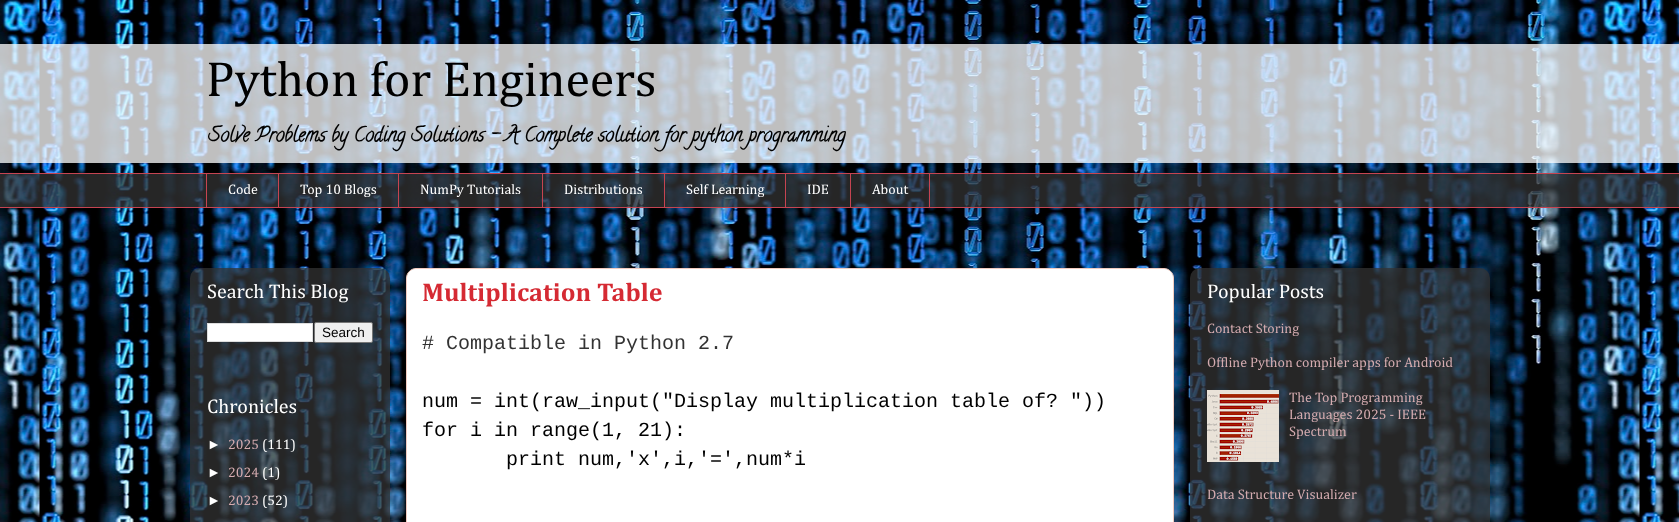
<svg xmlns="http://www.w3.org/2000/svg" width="1679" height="522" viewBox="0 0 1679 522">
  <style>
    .t1 { font: 50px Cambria; fill: #000; }
    .t2 { font: bold 20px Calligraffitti; fill: #000; }
    .t3 { font: 14px Cambria; fill: #fff; }
    .t4 { font: 20px Cambria; fill: #fff; }
    .t5 { font: 13.5px Liberation Sans; fill: #000; }
    .t6 { font: 14px Liberation Sans; fill: #fff; }
    .t7 { font: 14px Cambria; fill: #d4abaf; }
    .t8 { font: bold 26px Cambria; fill: #d52a33; }
    .t9 { font: 20px Liberation Mono; fill: #333; }
    .t10 { font: 20px Liberation Mono; fill: #000; }
  </style>
  <rect width="100%" height="100%" fill="#fff"/>
  <image x="0" y="0" width="1679" height="522" href="images/1.png"/>
  <rect x="0" y="44" width="1679" height="119" fill="#ffffffbf"/>
  <text x="206" y="96" class="t1">Python for Engineers</text>
  <text x="208" y="141" class="t2">Solve Problems by Coding Solutions - A Complete solution for python programming</text>
  <rect x="0" y="174" width="1679" height="33" fill="#333333bf"/>
  <rect x="0" y="173" width="1679" height="1" fill="#c64451"/>
  <rect x="206" y="173" width="1" height="35" fill="#c64451"/>
  <text x="228" y="194" class="t3">Code</text>
  <rect x="278" y="173" width="1" height="35" fill="#c64451"/>
  <text x="300" y="194" class="t3">Top 10 Blogs</text>
  <rect x="398" y="173" width="1" height="35" fill="#c64451"/>
  <text x="420" y="194" class="t3">NumPy Tutorials</text>
  <rect x="542" y="173" width="1" height="35" fill="#c64451"/>
  <text x="564" y="194" class="t3">Distributions</text>
  <rect x="664" y="173" width="1" height="35" fill="#c64451"/>
  <text x="686" y="194" class="t3">Self Learning</text>
  <rect x="785" y="173" width="1" height="35" fill="#c64451"/>
  <text x="807" y="194" class="t3">IDE</text>
  <rect x="850.5" y="173.5" width="79" height="34" fill="none" stroke="#c64451"/>
  <text x="872" y="194" class="t3">About</text>
  <rect x="0" y="207" width="1679" height="1" fill="#c64451"/>
  <image x="190" y="268" width="200" height="254" href="images/2.png"/>
  <text x="207" y="298" class="t4">Search This Blog</text>
  <rect x="207.5" y="323.5" width="105" height="18" fill="#fff" stroke="#ddd"/>
  <rect x="314.5" y="322.5" width="58" height="20" rx="1.5" fill="#efefef" stroke="#767676"/>
  <text x="322" y="337" class="t5">Search</text>
  <text x="207" y="413" class="t4">Chronicles</text>
  <text x="207" y="449" class="t6">►</text>
  <text x="228" y="449" class="t7">2025</text>
  <text x="262" y="449" class="t3">(111)</text>
  <text x="207" y="477" class="t6">►</text>
  <text x="228" y="477" class="t7">2024</text>
  <text x="262" y="477" class="t3">(1)</text>
  <text x="207" y="505" class="t6">►</text>
  <text x="228" y="505" class="t7">2023</text>
  <text x="262" y="505" class="t3">(52)</text>
  <path d="M416 268.5H1164C1169 268.5 1173.5 273 1173.5 278V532.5H406.5V278C406.5 273 411 268.5 416 268.5Z" fill="#fff" stroke="#f1cbc0"/>
  <text x="422" y="301" class="t8">Multiplication Table</text>
  <text x="422" y="349" class="t9"># Compatible in Python 2.7</text>
  <text x="422" y="407" class="t10">num = int(raw_input("Display multiplication table of? "))</text>
  <text x="422" y="436" class="t10">for i in range(1, 21):</text>
  <text x="506" y="465" class="t10">print num,'x',i,'=',num*i</text>
  <image x="1190" y="268" width="300" height="254" href="images/3.png"/>
  <text x="1207" y="298" class="t4">Popular Posts</text>
  <text x="1207" y="333" class="t7">Contact Storing</text>
  <text x="1207" y="367" class="t7">Offline Python compiler apps for Android</text>
  <image x="1207" y="390" width="72" height="72" href="images/4.png"/>
  <text x="1289" y="402" class="t7">The Top Programming</text>
  <text x="1289" y="419" class="t7">Languages 2025 - IEEE</text>
  <text x="1289" y="436" class="t7">Spectrum</text>
  <text x="1207" y="499" class="t7">Data Structure Visualizer</text>
</svg>
